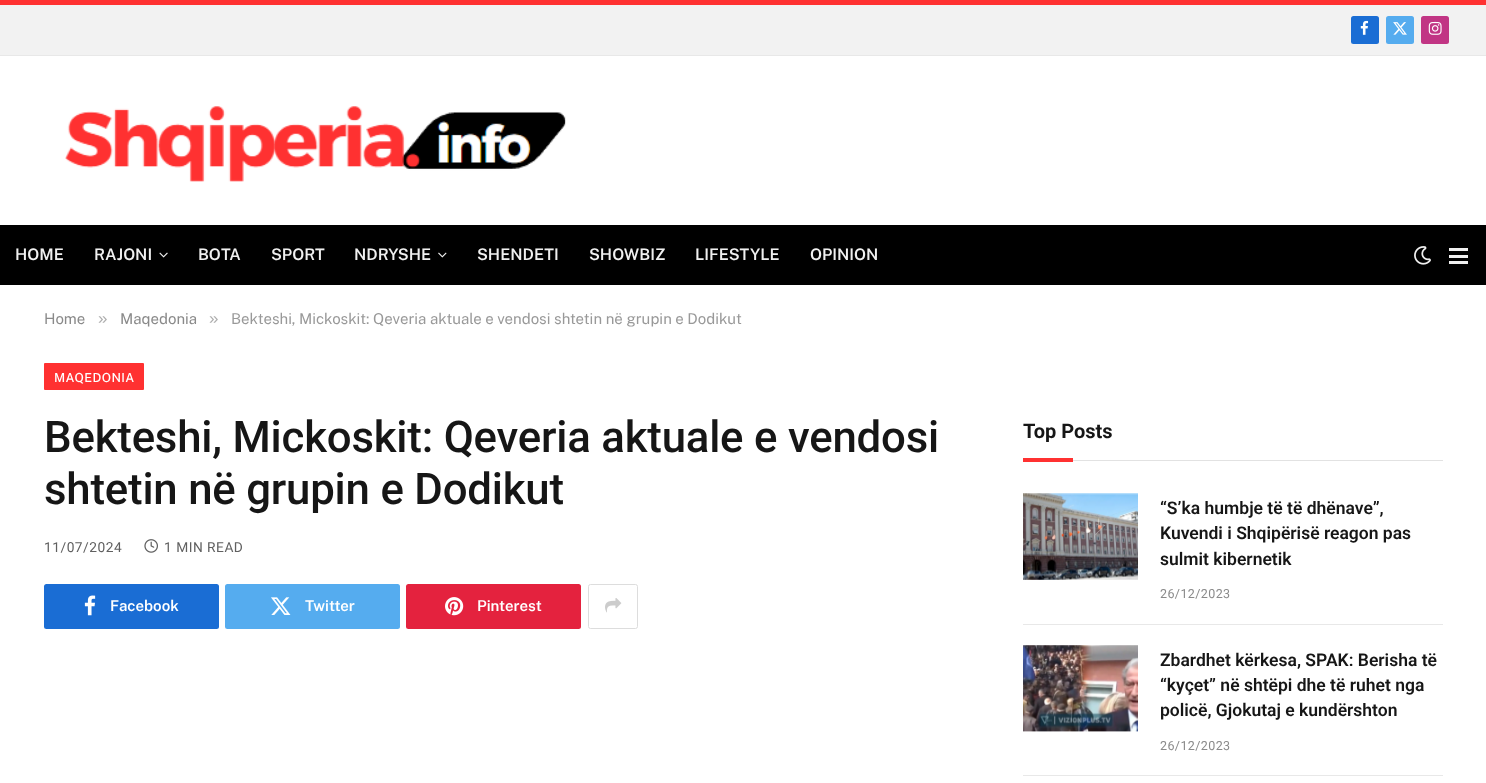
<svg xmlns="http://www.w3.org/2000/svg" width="1486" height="783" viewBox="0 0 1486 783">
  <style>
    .t1 { font: 600 16px Public Sans; fill: #f0f0f0; }
    .t2 { font: 15px Public Sans; fill: #8a8a8a; }
    .t3 { font: 17px Liberation Sans; fill: #adadad; }
    .t4 { font: 15px Public Sans; fill: #999; }
    .t5 { font: 500 12.5px Public Sans; letter-spacing: 0.4px; fill: #fff; }
    .t6 { font: 500 43.75px Roboto; letter-spacing: -0.2px; fill: #161616; }
    .t7 { font: 13.75px Roboto; letter-spacing: 0.5px; fill: #606060; }
    .t8 { font: 600 15px Public Sans; fill: #fff; }
    .t9 { font: bold 20px Roboto; fill: #161616; }
    .t10 { font: 600 17.5px Roboto; fill: #161616; }
    .t11 { font: 12.5px Roboto; letter-spacing: 0.4px; fill: #8a8a8a; }
  </style>
  <rect width="100%" height="100%" fill="#fff"/>
  <rect x="0" y="5" width="1486" height="50" fill="#f2f2f2"/>
  <rect x="0" y="0" width="1486" height="5" fill="#ff3131"/>
  <rect x="0" y="55" width="1486" height="1" fill="#e8e8e8"/>
  <rect x="1351" y="16" width="28" height="28" rx="2.5" fill="#1a6dd4"/>
  <image x="1360" y="20" width="9" height="15" href="images/1.png"/>
  <rect x="1386" y="16" width="28" height="28" rx="2.5" fill="#55acef"/>
  <image x="1393" y="22" width="14" height="13" href="images/2.png"/>
  <rect x="1421" y="16" width="28" height="28" rx="2.5" fill="#c13584"/>
  <image x="1428" y="21" width="14" height="14" href="images/3.png"/>
  <image x="65" y="106" width="501" height="76" href="images/4.png"/>
  <rect x="0" y="225" width="1486" height="60" fill="#000"/>
  <text x="15" y="260" class="t1">HOME</text>
  <text x="94" y="260" class="t1">RAJONI</text>
  <image x="159" y="252" width="9" height="6" href="images/5.png"/>
  <text x="198" y="260" class="t1">BOTA</text>
  <text x="271" y="260" class="t1">SPORT</text>
  <text x="354" y="260" class="t1">NDRYSHE</text>
  <image x="438" y="252" width="9" height="6" href="images/6.png"/>
  <text x="477" y="260" class="t1">SHENDETI</text>
  <text x="589" y="260" class="t1">SHOWBIZ</text>
  <text x="695" y="260" class="t1">LIFESTYLE</text>
  <text x="810" y="260" class="t1">OPINION</text>
  <image x="1414" y="246" width="17" height="19" href="images/7.png"/>
  <rect x="1449" y="261" width="19" height="3" fill="#f0f0f0"/>
  <rect x="1449" y="248" width="19" height="3" fill="#f0f0f0"/>
  <rect x="1449" y="255" width="19" height="3" fill="#f0f0f0"/>
  <text x="44" y="324" class="t2">Home</text>
  <text x="98" y="324" class="t3">»</text>
  <text x="120" y="324" class="t2">Maqedonia</text>
  <text x="209" y="324" class="t3">»</text>
  <text x="231" y="324" class="t4">Bekteshi, Mickoskit: Qeveria aktuale e vendosi shtetin në grupin e Dodikut</text>
  <rect x="44" y="363" width="100" height="27" rx="1" fill="#ff3131"/>
  <text x="54" y="382" class="t5">MAQEDONIA</text>
  <text x="44" y="452" class="t6">Bekteshi, Mickoskit: Qeveria aktuale e vendosi</text>
  <text x="44" y="504" class="t6">shtetin në grupin e Dodikut</text>
  <text x="44" y="552" class="t7">11/07/2024</text>
  <image x="144" y="539" width="14" height="14" href="images/8.png"/>
  <text x="164" y="552" class="t7">1 MIN READ</text>
  <rect x="44" y="584" width="175" height="45" rx="2.5" fill="#1a6dd4"/>
  <image x="84" y="595" width="12" height="21" href="images/9.png"/>
  <text x="110" y="611" class="t8">Facebook</text>
  <rect x="225" y="584" width="175" height="45" rx="2.5" fill="#55acef"/>
  <image x="271" y="597" width="20" height="18" href="images/10.png"/>
  <text x="305" y="611" class="t8">Twitter</text>
  <rect x="406" y="584" width="175" height="45" rx="2.5" fill="#e4223e"/>
  <image x="445" y="597" width="19" height="19" href="images/11.png"/>
  <text x="477" y="611" class="t8">Pinterest</text>
  <rect x="588.5" y="584.5" width="49" height="44" rx="2" fill="none" stroke="#ddd"/>
  <image x="605" y="598" width="17" height="15" href="images/12.png"/>
  <rect x="1073" y="460" width="370" height="1" fill="#e2e2e2"/>
  <text x="1023" y="438" class="t9">Top Posts</text>
  <rect x="1023" y="458" width="50" height="4" fill="#ff3131"/>
  <image x="1023" y="493" width="115" height="87" href="images/13.png"/>
  <text x="1160" y="514" class="t10">“S’ka humbje të të dhënave”,</text>
  <text x="1160" y="539" class="t10">Kuvendi i Shqipërisë reagon pas</text>
  <text x="1160" y="565" class="t10">sulmit kibernetik</text>
  <text x="1160" y="598" class="t11">26/12/2023</text>
  <rect x="1023" y="624" width="420" height="1" fill="#e8e8e8"/>
  <image x="1023" y="645" width="115" height="87" href="images/14.png"/>
  <text x="1160" y="666" class="t10">Zbardhet kërkesa, SPAK: Berisha të</text>
  <text x="1160" y="691" class="t10">“kyçet” në shtëpi dhe të ruhet nga</text>
  <text x="1160" y="716" class="t10">policë, Gjokutaj e kundërshton</text>
  <text x="1160" y="750" class="t11">26/12/2023</text>
  <rect x="1023" y="775" width="420" height="1" fill="#e8e8e8"/>
</svg>
